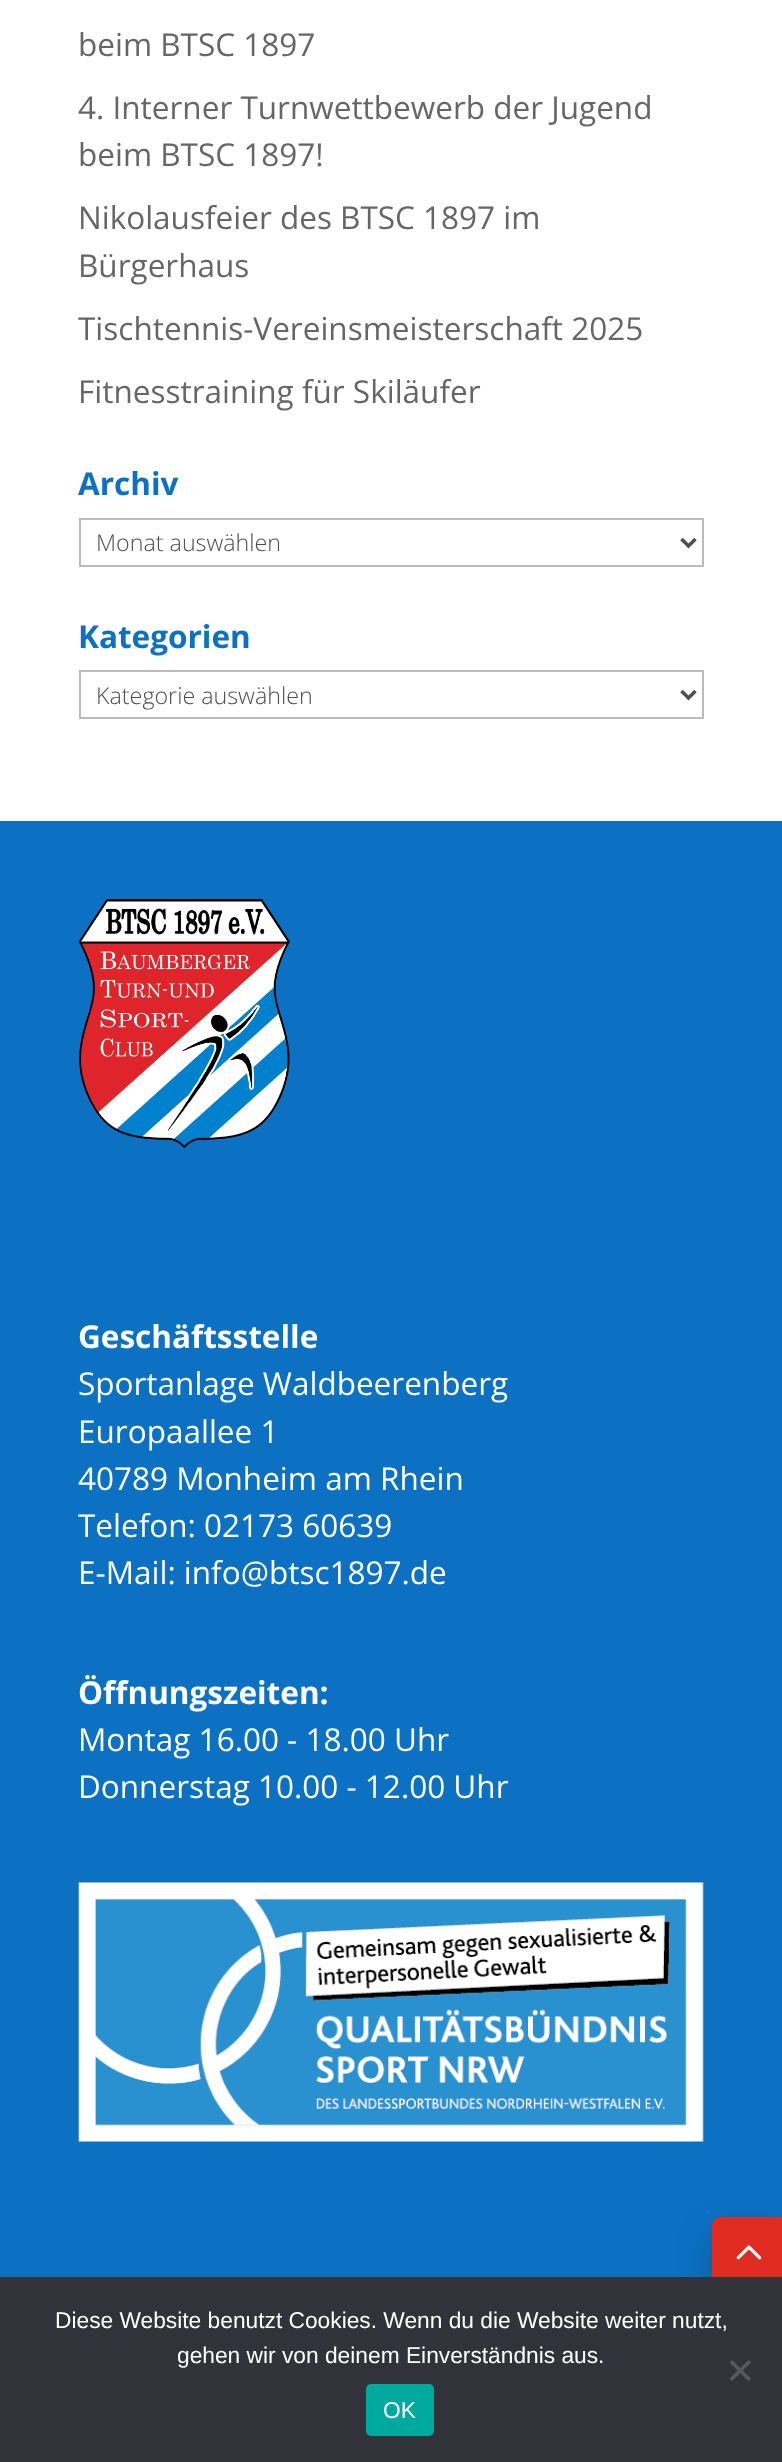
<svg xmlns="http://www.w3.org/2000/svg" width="782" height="2462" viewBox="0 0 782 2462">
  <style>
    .t1 { font: 31.5px Open Sans; fill: #666; }
    .t2 { font: bold 31.5px Open Sans; fill: #0c71c3; }
    .t3 { font: 300 23.25px Open Sans; fill: #4e4e4e; }
    .t4 { font: bold 31.5px 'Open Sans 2'; fill: #fff; }
    .t5 { font: 31.5px Open Sans; fill: #fff; }
    .t6 { font: 22.75px Liberation Sans; fill: #fff; }
  </style>
  <rect width="100%" height="100%" fill="#fff"/>
  <text x="78" y="56" class="t1">beim BTSC 1897</text>
  <text x="78" y="119" class="t1">4. Interner Turnwettbewerb der Jugend</text>
  <text x="78" y="166" class="t1">beim BTSC 1897!</text>
  <text x="78" y="229" class="t1">Nikolausfeier des BTSC 1897 im</text>
  <text x="78" y="277" class="t1">Bürgerhaus</text>
  <text x="78" y="340" class="t1">Tischtennis-Vereinsmeisterschaft 2025</text>
  <text x="78" y="403" class="t1">Fitnesstraining für Skiläufer</text>
  <text x="78" y="495" class="t2">Archiv</text>
  <rect x="80" y="519" width="623" height="47" fill="none" stroke="#bbb" stroke-width="2"/>
  <path d="M681.5 539L688.5 546L695.5 539" fill="none" stroke="#4e4e4e" stroke-width="3.5"/>
  <text x="96" y="551" class="t3">Monat auswählen</text>
  <text x="78" y="648" class="t2">Kategorien</text>
  <rect x="80" y="671" width="623" height="47" fill="none" stroke="#bbb" stroke-width="2"/>
  <path d="M681.5 691L688.5 698L695.5 691" fill="none" stroke="#4e4e4e" stroke-width="3.5"/>
  <text x="96" y="704" class="t3">Kategorie auswählen</text>
  <rect x="0" y="821" width="782" height="1456" fill="#0c71c3"/>
  <image x="78" y="899" width="213" height="249" href="images/1.png"/>
  <text x="78" y="1348" class="t4">Geschäftsstelle</text>
  <text x="78" y="1395" class="t5">Sportanlage Waldbeerenberg</text>
  <text x="78" y="1443" class="t5">Europaallee 1</text>
  <text x="78" y="1490" class="t5">40789 Monheim am Rhein</text>
  <text x="78" y="1537" class="t5">Telefon: 02173 60639</text>
  <text x="78" y="1584" class="t5">E-Mail: info@btsc1897.de</text>
  <text x="78" y="1704" class="t4">Öffnungszeiten:</text>
  <text x="78" y="1751" class="t5">Montag 16.00 - 18.00 Uhr</text>
  <text x="78" y="1798" class="t5">Donnerstag 10.00 - 12.00 Uhr</text>
  <image x="78" y="1882" width="626" height="260" href="images/2.png"/>
  <rect x="712" y="2231" width="70" height="70" rx="9" fill="#00000033" filter="blur(17.5px)"/>
  <path d="M721 2217H782V2287H721C716 2287 712 2283 712 2278V2226C712 2221 716 2217 721 2217Z" fill="#e02b20"/>
  <image x="736" y="2245" width="26" height="15" href="images/3.png"/>
  <rect x="0" y="2277" width="782" height="185" fill="#32323a"/>
  <text x="55" y="2328" class="t6">Diese Website benutzt Cookies. Wenn du die Website weiter nutzt,</text>
  <text x="177" y="2363" class="t6">gehen wir von deinem Einverständnis aus.</text>
  <path d="M748.5 2360L751 2362.5L732 2381L729.5 2378.5Z" fill="#59595d"/>
  <path d="M729.5 2362.5L732 2360L751 2378.5L748.5 2381Z" fill="#59595d"/>
  <rect x="366" y="2384" width="68" height="52" rx="5" fill="#00a99d"/>
  <text x="383" y="2418" class="t6">OK</text>
</svg>
